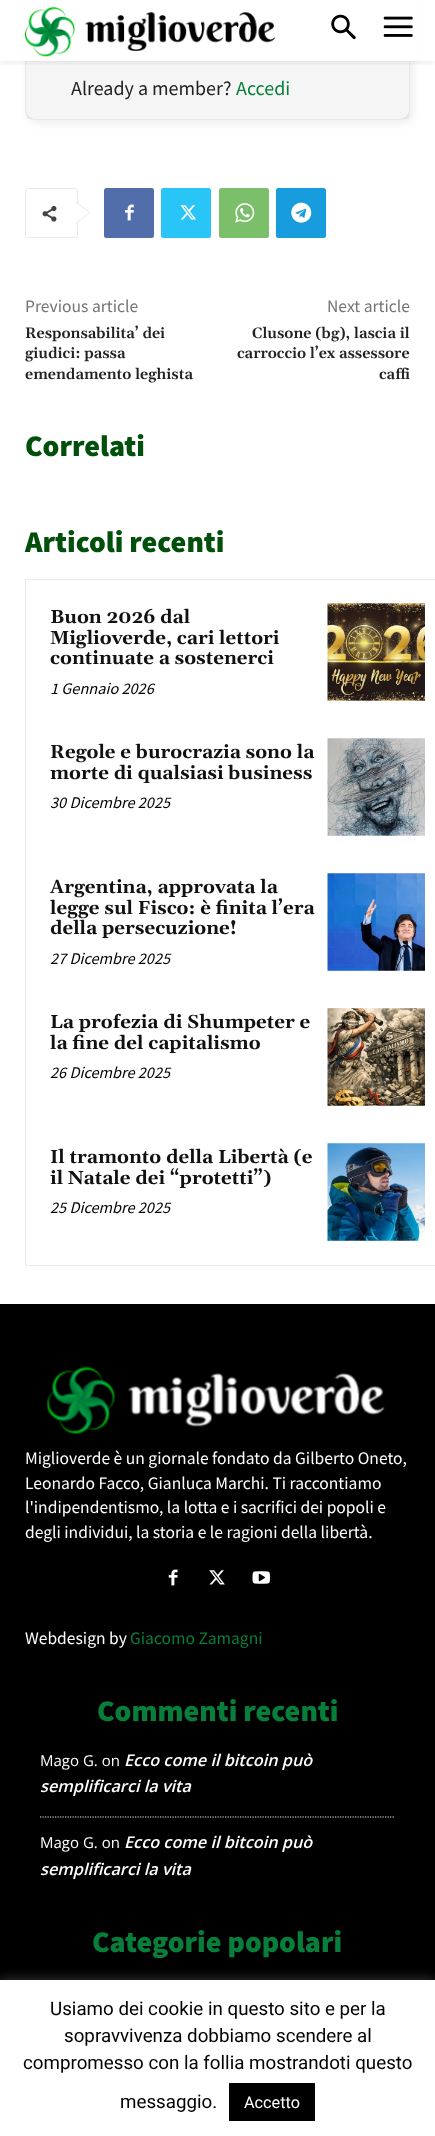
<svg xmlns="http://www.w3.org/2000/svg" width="435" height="2136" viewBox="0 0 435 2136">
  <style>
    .t1 { font: 20px Source Sans Pro; fill: #222; }
    .t2 { font: 20px Source Sans Pro; fill: #087e3b; }
    .t3 { font: 17.5px Source Sans Pro; fill: #747474; }
    .t4 { font: 600 15px Gelasio; fill: #222; }
    .t5 { font: 900 30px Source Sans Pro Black; fill: #004f0a; }
    .t6 { font: bold 18.75px Gelasio; fill: #111; }
    .t7 { font: italic 16.25px Source Sans Pro; fill: #000; }
    .t8 { font: 17.5px Source Sans Pro; fill: #fff; }
    .t9 { font: 17.5px Source Sans Pro; fill: #087e3b; }
    .t10 { font: 900 30px Source Sans Pro Black; fill: #087e3b; }
    .t11 { font: 15px Open Sans; fill: #fff; }
    .t12 { font: italic 600 16.25px Open Sans; fill: #fff; }
    .t13 { font: 18.75px Roboto; fill: #000; }
    .t14 { font: 16.25px Roboto; fill: #fff; }
  </style>
  <defs>
    <clipPath id="clip1"><rect x="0" y="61" width="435" height="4"/></clipPath>
  </defs>
  <rect width="100%" height="100%" fill="#fff"/>
  <rect x="28" y="-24" width="385" height="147" rx="10" fill="#00000012" filter="blur(4.5px)"/>
  <rect x="25.5" y="-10.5" width="384" height="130" rx="9.5" fill="#fff" stroke="#e8e8e8"/>
  <rect x="23" y="0" width="395" height="61" fill="#fff"/>
  <image x="25" y="6" width="250" height="51" href="images/1.png"/>
  <image x="331" y="14" width="25" height="26" href="images/2.png"/>
  <image x="383" y="16" width="30" height="21" href="images/3.png"/>
  <rect x="26" y="61" width="383" height="58" fill="#0000000a"/>
  <g clip-path="url(#clip1)">
    <rect x="0" y="3" width="435" height="61" fill="#0000000f" filter="blur(2.5px)"/>
  </g>
  <text x="71" y="95" class="t1">Already a member?</text>
  <text x="236" y="95" class="t2">Accedi</text>
  <rect x="25.5" y="188.5" width="52" height="49" rx="2" fill="none" stroke="#e9e9e9"/>
  <path d="M76 224V201L90 212.5Z" fill="#e9e9e9"/>
  <image x="42" y="205" width="15" height="17" href="images/4.png"/>
  <path d="M76 222.5V202.5L89 212.5Z" fill="#fff"/>
  <rect x="104" y="188" width="50" height="50" rx="2.5" fill="#516eab"/>
  <image x="125" y="204" width="9" height="17" href="images/5.png"/>
  <rect x="161" y="188" width="50" height="50" rx="2.5" fill="#29c5f6"/>
  <image x="180" y="205" width="16" height="15" href="images/6.png"/>
  <rect x="219" y="188" width="50" height="50" rx="2.5" fill="#7bbf6a"/>
  <image x="235" y="203" width="20" height="20" href="images/7.png"/>
  <rect x="276" y="188" width="50" height="50" rx="2.5" fill="#179cde"/>
  <image x="291" y="202" width="21" height="21" href="images/8.png"/>
  <text x="25" y="312" class="t3">Previous article</text>
  <text x="25" y="338" class="t4">Responsabilita’ dei</text>
  <text x="25" y="358" class="t4">giudici: passa</text>
  <text x="25" y="379" class="t4">emendamento leghista</text>
  <text x="327" y="312" class="t3">Next article</text>
  <text x="252" y="338" class="t4">Clusone (bg), lascia il</text>
  <text x="237" y="358" class="t4">carroccio l’ex assessore</text>
  <text x="379" y="379" class="t4">caffi</text>
  <text x="25" y="456" class="t5">Correlati</text>
  <text x="25" y="552" class="t5">Articoli recenti</text>
  <rect x="25.5" y="579.5" width="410" height="686" fill="none" stroke="#eaeaea"/>
  <text x="50" y="623" class="t6">Buon 2026 dal</text>
  <text x="50" y="644" class="t6">Miglioverde, cari lettori</text>
  <text x="50" y="664" class="t6">continuate a sostenerci</text>
  <text x="50" y="694" class="t7">1 Gennaio 2026</text>
  <image x="327" y="603" width="98" height="98" href="images/9.png"/>
  <text x="50" y="758" class="t6">Regole e burocrazia sono la</text>
  <text x="50" y="779" class="t6">morte di qualsiasi business</text>
  <text x="50" y="808" class="t7">30 Dicembre 2025</text>
  <image x="327" y="738" width="98" height="98" href="images/10.png"/>
  <text x="50" y="893" class="t6">Argentina, approvata la</text>
  <text x="50" y="914" class="t6">legge sul Fisco: è finita l’era</text>
  <text x="50" y="934" class="t6">della persecuzione!</text>
  <text x="50" y="964" class="t7">27 Dicembre 2025</text>
  <image x="327" y="873" width="98" height="98" href="images/11.png"/>
  <text x="50" y="1028" class="t6">La profezia di Shumpeter e</text>
  <text x="50" y="1049" class="t6">la fine del capitalismo</text>
  <text x="50" y="1078" class="t7">26 Dicembre 2025</text>
  <image x="327" y="1008" width="98" height="98" href="images/12.png"/>
  <text x="50" y="1163" class="t6">Il tramonto della Libertà (e</text>
  <text x="50" y="1184" class="t6">il Natale dei “protetti”)</text>
  <text x="50" y="1213" class="t7">25 Dicembre 2025</text>
  <image x="327" y="1143" width="98" height="98" href="images/13.png"/>
  <rect x="0" y="1304" width="435" height="676" fill="#000"/>
  <image x="47" y="1366" width="338" height="68" href="images/14.png"/>
  <text x="25" y="1464" class="t8">Miglioverde è un giornale fondato da Gilberto Oneto,</text>
  <text x="25" y="1489" class="t8">Leonardo Facco, Gianluca Marchi. Ti raccontiamo</text>
  <text x="25" y="1513" class="t8">l'indipendentismo, la lotta e i sacrifici dei popoli e</text>
  <text x="25" y="1538" class="t8">degli individui, la storia e le ragioni della libertà.</text>
  <image x="168" y="1569" width="10" height="17" href="images/15.png"/>
  <image x="209" y="1570" width="16" height="15" href="images/16.png"/>
  <image x="252" y="1571" width="18" height="13" href="images/17.png"/>
  <text x="25" y="1644" class="t8">Webdesign by</text>
  <text x="130" y="1644" class="t9">Giacomo Zamagni</text>
  <text x="97" y="1721" class="t10">Commenti recenti</text>
  <path d="M40 1817H395" fill="none" stroke="#eaeaea" stroke-width="1.2" stroke-dasharray="1.25 1.25"/>
  <text x="40" y="1766" class="t11">Mago G. on</text>
  <text x="124" y="1766" class="t12">Ecco come il bitcoin può</text>
  <text x="40" y="1792" class="t12">semplificarci la vita</text>
  <text x="40" y="1848" class="t11">Mago G. on</text>
  <text x="124" y="1848" class="t12">Ecco come il bitcoin può</text>
  <text x="40" y="1875" class="t12">semplificarci la vita</text>
  <text x="92" y="1952" class="t10">Categorie popolari</text>
  <rect x="0" y="1979" width="435" height="156" fill="#acabab4d" filter="blur(6px)"/>
  <rect x="0" y="1980" width="435" height="156" fill="#fff"/>
  <text x="50" y="2015" class="t13">Usiamo dei cookie in questo sito e per la</text>
  <text x="64" y="2042" class="t13">sopravvivenza dobbiamo scendere al</text>
  <text x="23" y="2069" class="t13">compromesso con la follia mostrandoti questo</text>
  <text x="120" y="2108" class="t13">messaggio.</text>
  <rect x="229" y="2083" width="86" height="38" fill="#000"/>
  <text x="244" y="2108" class="t14">Accetto</text>
</svg>
